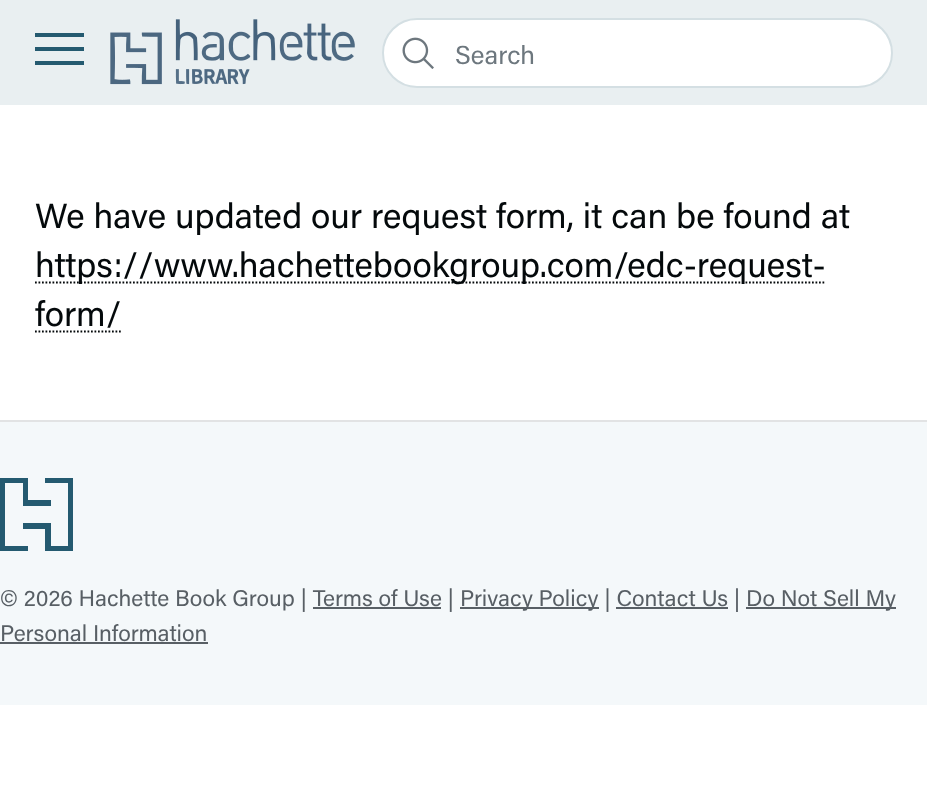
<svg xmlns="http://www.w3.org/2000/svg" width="927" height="809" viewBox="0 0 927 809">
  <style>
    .t1 { font: 26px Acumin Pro; fill: #6d777e; }
    .t2 { font: 35px Acumin Pro; fill: #04090b; }
    .t3 { font: 22.75px Acumin Pro; fill: #585f65; }
  </style>
  <rect width="100%" height="100%" fill="#fff"/>
  <rect x="0" y="0" width="927" height="105" fill="#e9eff1"/>
  <path d="M35 33H84V37H35ZM35 47H84V51H35ZM35 61H84V65H35Z" fill="#245a70"/>
  <image x="110" y="19" width="245" height="66" href="images/1.png"/>
  <rect x="383" y="19" width="509" height="68" rx="34" fill="#fff" stroke="#d4dfe3" stroke-width="2"/>
  <image x="402" y="37" width="32" height="32" href="images/2.png"/>
  <text x="455" y="64" class="t1">Search</text>
  <text x="35" y="228" class="t2">We have updated our request form, it can be found at</text>
  <path d="M35 282.5H826" fill="none" stroke="#04090b" stroke-width="1.8" stroke-dasharray="1.75 1.75"/>
  <text x="35" y="277" class="t2">https://www.hachettebookgroup.com/edc-request-</text>
  <text x="35" y="326" class="t2">form/</text>
  <path d="M35 331.5H121.5" fill="none" stroke="#04090b" stroke-width="1.8" stroke-dasharray="1.75 1.75"/>
  <rect x="0" y="422" width="927" height="283" fill="#f4f8fa"/>
  <rect x="0" y="420" width="927" height="2" fill="#e2e3e4"/>
  <path d="M73 551V478H45V483H68V546H51V523H23V529H45V551Z" fill="#245a70"/>
  <path d="M28 500H51V506H23V483H5V546H28V551H0V478H28Z" fill="#245a70"/>
  <text x="0" y="606" class="t3">© 2026 Hachette Book Group | Terms of Use |</text>
  <rect x="460" y="607" width="139" height="2" fill="#585f65"/>
  <text x="460" y="606" class="t3">Privacy Policy | Contact Us |</text>
  <rect x="746" y="607" width="150" height="2" fill="#585f65"/>
  <text x="746" y="606" class="t3">Do Not Sell My</text>
  <rect x="313" y="607" width="128" height="2" fill="#585f65"/>
  <rect x="616" y="607" width="112" height="2" fill="#585f65"/>
  <text x="0" y="641" class="t3">Personal Information</text>
  <rect x="0" y="642" width="208" height="2" fill="#585f65"/>
</svg>
